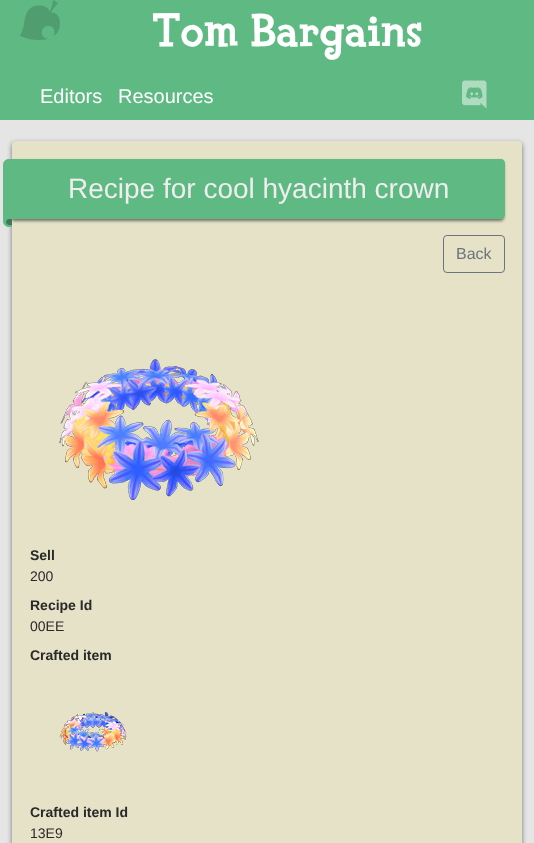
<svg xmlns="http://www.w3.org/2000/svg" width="534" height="843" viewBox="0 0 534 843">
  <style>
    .t1 { font: 900 48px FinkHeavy; fill: #fff; }
    .t2 { font: 20px Liberation Sans; fill: #fff; }
    .t3 { font: 28px Liberation Sans; fill: #eee; }
    .t4 { font: 16px Liberation Sans; fill: #6c757d; }
    .t5 { font: bold 14px Liberation Sans; fill: #292929; }
    .t6 { font: 14px Liberation Sans; fill: #292929; }
  </style>
  <rect width="100%" height="100%" fill="#e5e5e5"/>
  <rect x="0" y="0" width="534" height="120" fill="#5fb983"/>
  <image x="20" y="0" width="40" height="40" href="images/1.png"/>
  <text x="152" y="46" class="t1">Tom Bargains</text>
  <text x="40" y="103" class="t2">Editors</text>
  <text x="118" y="103" class="t2">Resources</text>
  <image x="462" y="80" width="25" height="29" href="images/2.png"/>
  <rect x="12" y="143" width="510" height="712" rx="4" fill="#00000080" filter="blur(2.5px)"/>
  <rect x="12" y="141" width="510" height="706" rx="4" fill="#e6e2c8"/>
  <rect x="11" y="161" width="493" height="60" rx="4" fill="#00000080" filter="blur(1.5px)"/>
  <path d="M12 159H501C503 159 505 161 505 163V215C505 217 503 219 501 219H12Z" fill="#5fb983"/>
  <path d="M9 159H12V227H9C5.5 227 3 224.5 3 221V165C3 161.5 5.5 159 9 159Z" fill="#5fb983"/>
  <text x="68" y="198" class="t3">Recipe for cool hyacinth crown</text>
  <path d="M9 219H12V225H9C7.5 225 6 223.5 6 222C6 220.5 7.5 219 9 219Z" fill="#3e7855"/>
  <rect x="443.5" y="235.5" width="61" height="37" rx="3.5" fill="none" stroke="#6c757d"/>
  <text x="456" y="259" class="t4">Back</text>
  <image x="59" y="359" width="200" height="141" href="images/3.png"/>
  <text x="30" y="560" class="t5">Sell</text>
  <text x="30" y="581" class="t6">200</text>
  <text x="30" y="610" class="t5">Recipe Id</text>
  <text x="30" y="631" class="t6">00EE</text>
  <text x="30" y="660" class="t5">Crafted item</text>
  <image x="59" y="711" width="68" height="41" href="images/4.png"/>
  <text x="30" y="817" class="t5">Crafted item Id</text>
  <text x="30" y="838" class="t6">13E9</text>
</svg>
